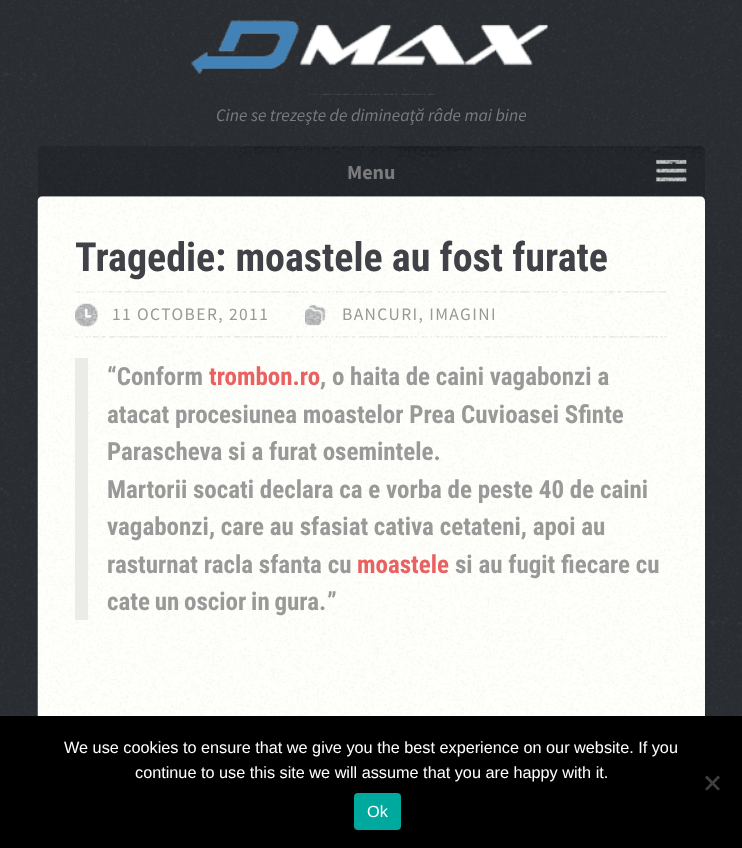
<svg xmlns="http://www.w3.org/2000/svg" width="742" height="848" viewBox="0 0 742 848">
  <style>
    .t1 { font: italic 17.5px Source Sans Pro; fill: #7b7b7d; }
    .t2 { font: bold 20px Source Sans Pro; fill: #7b7b7d; }
    .t3 { font: bold 40px Roboto Condensed; fill: #404248; }
    .t4 { font: 17.5px Source Sans Pro; letter-spacing: 1.4px; fill: #999; }
    .t5 { font: bold 25px Roboto Condensed; fill: #999; }
    .t6 { font: bold 25px Roboto Condensed; fill: #ea6161; }
    .t7 { font: 16.25px Liberation Sans; fill: #fff; }
  </style>
  <rect width="100%" height="100%" fill="#fff"/>
  <image x="0" y="0" width="742" height="716" href="images/1.png"/>
  <image x="191" y="20" width="357" height="54" href="images/2.png"/>
  <image x="308" y="93" width="126" height="2" href="images/3.png"/>
  <text x="216" y="121" class="t1">Cine se trezeşte de dimineaţă râde mai bine</text>
  <path d="M43 146H700C703 146 705 148 705 151V196H38V151C38 148 40 146 43 146Z" fill="#00000026"/>
  <image x="234" y="146" width="471" height="36" href="images/4.png"/>
  <text x="347" y="179" class="t2">Menu</text>
  <image x="37" y="196" width="668" height="520" href="images/5.png"/>
  <text x="75" y="271" class="t3">Tragedie: moastele au fost furate</text>
  <image x="75" y="291" width="592" height="47" href="images/6.png"/>
  <image x="75" y="303" width="23" height="24" href="images/7.png"/>
  <text x="112" y="320" class="t4">11 OCTOBER, 2011</text>
  <image x="305" y="304" width="21" height="22" href="images/8.png"/>
  <text x="342" y="320" class="t4">BANCURI, IMAGINI</text>
  <rect x="75" y="358" width="13" height="262" fill="#ebece8"/>
  <text x="107" y="385" class="t5">“Conform</text>
  <text x="209" y="385" class="t6">trombon.ro</text>
  <text x="320" y="385" class="t5">, o haita de caini vagabonzi a</text>
  <text x="107" y="423" class="t5">atacat procesiunea moastelor Prea Cuvioasei Sfinte</text>
  <text x="107" y="460" class="t5">Parascheva si a furat osemintele.</text>
  <text x="107" y="498" class="t5">Martorii socati declara ca e vorba de peste 40 de caini</text>
  <text x="107" y="535" class="t5">vagabonzi, care au sfasiat cativa cetateni, apoi au</text>
  <text x="107" y="573" class="t5">rasturnat racla sfanta cu</text>
  <text x="357" y="573" class="t6">moastele</text>
  <text x="455" y="573" class="t5">si au fugit fiecare cu</text>
  <text x="107" y="610" word-spacing="-1" class="t5">cate un oscior in gura.</text>
  <text x="327" y="610" class="t5">”</text>
  <rect x="0" y="716" width="742" height="132" fill="#000"/>
  <text x="64" y="753" class="t7">We use cookies to ensure that we give you the best experience on our website. If you</text>
  <text x="135" y="778" class="t7">continue to use this site we will assume that you are happy with it.</text>
  <path d="M718 775.5L720 777.5L707 790.5L705 789Z" fill="#404040"/>
  <path d="M705 777.5L707 775.5L720 789L718 790.5Z" fill="#404040"/>
  <rect x="354" y="793" width="47" height="37" rx="4" fill="#00a99d"/>
  <text x="367" y="817" class="t7">Ok</text>
</svg>
